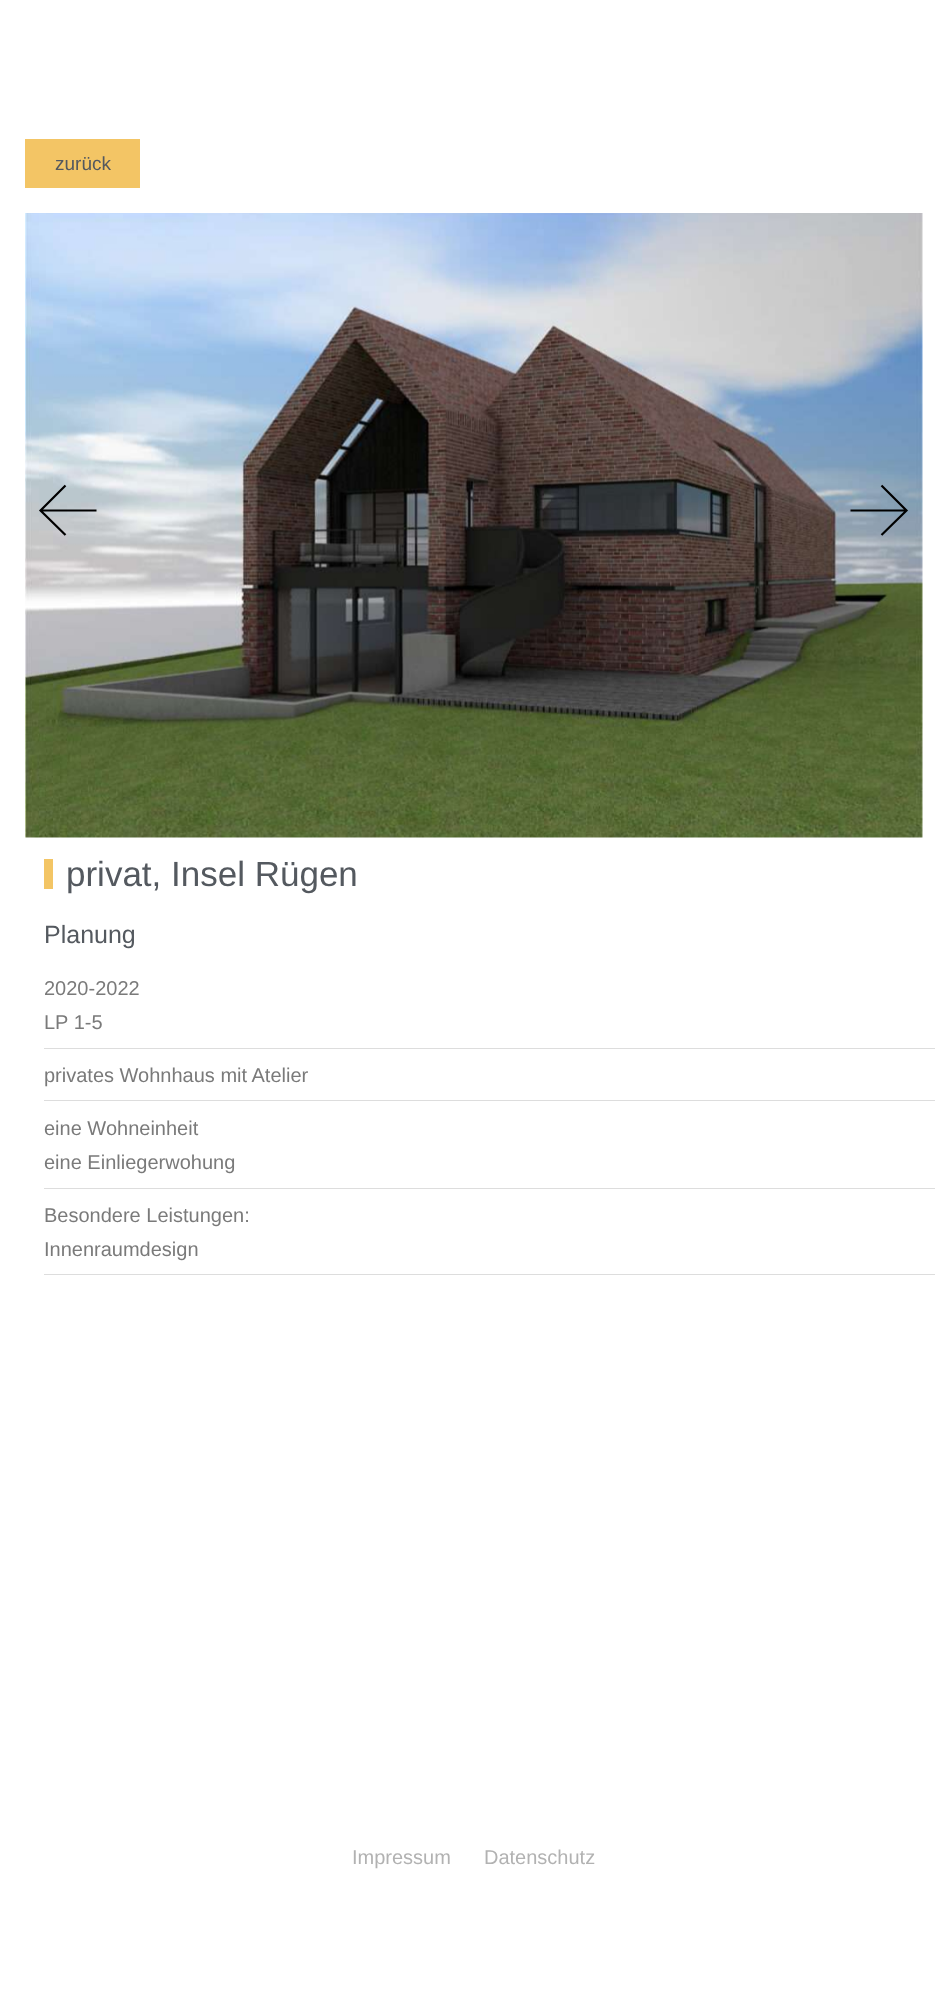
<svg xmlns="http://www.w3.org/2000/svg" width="947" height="1995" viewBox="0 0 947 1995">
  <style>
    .t1 { font: 19px Liberation Sans; fill: #54595f; }
    .t2 { font: 35px Liberation Sans; fill: #54595f; }
    .t3 { font: 25px Liberation Sans; fill: #54595f; }
    .t4 { font: 20px Liberation Sans; fill: #7a7a7a; }
    .t5 { font: 20px Liberation Sans; fill: #b2b2b2; }
  </style>
  <rect width="100%" height="100%" fill="#fff"/>
  <rect x="25" y="139" width="115" height="49" fill="#f3c565"/>
  <text x="55" y="170" class="t1">zurück</text>
  <image x="25" y="213" width="898" height="625" href="images/1.png"/>
  <path d="M40.5 510.5H96.5M65.5 535L40.5 510.5L65.5 485.5" fill="none" stroke="#000" stroke-width="2.2"/>
  <path d="M906.5 510.5H850.5M881.5 485.5L906.5 510.5L881.5 535" fill="none" stroke="#000" stroke-width="2.2"/>
  <rect x="44" y="859" width="9" height="30" fill="#f3c565"/>
  <text x="66" y="886" class="t2">privat, Insel Rügen</text>
  <text x="44" y="943" class="t3">Planung</text>
  <text x="44" y="995" class="t4">2020-2022</text>
  <text x="44" y="1029" class="t4">LP 1-5</text>
  <rect x="44" y="1048" width="891" height="1" fill="#ddd"/>
  <text x="44" y="1082" class="t4">privates Wohnhaus mit Atelier</text>
  <rect x="44" y="1100" width="891" height="1" fill="#ddd"/>
  <text x="44" y="1135" class="t4">eine Wohneinheit</text>
  <text x="44" y="1169" class="t4">eine Einliegerwohung</text>
  <rect x="44" y="1188" width="891" height="1" fill="#ddd"/>
  <text x="44" y="1222" class="t4">Besondere Leistungen:</text>
  <text x="44" y="1256" class="t4">Innenraumdesign</text>
  <rect x="44" y="1274" width="891" height="1" fill="#ddd"/>
  <text x="352" y="1864" class="t5">Impressum</text>
  <text x="484" y="1864" class="t5">Datenschutz</text>
</svg>
